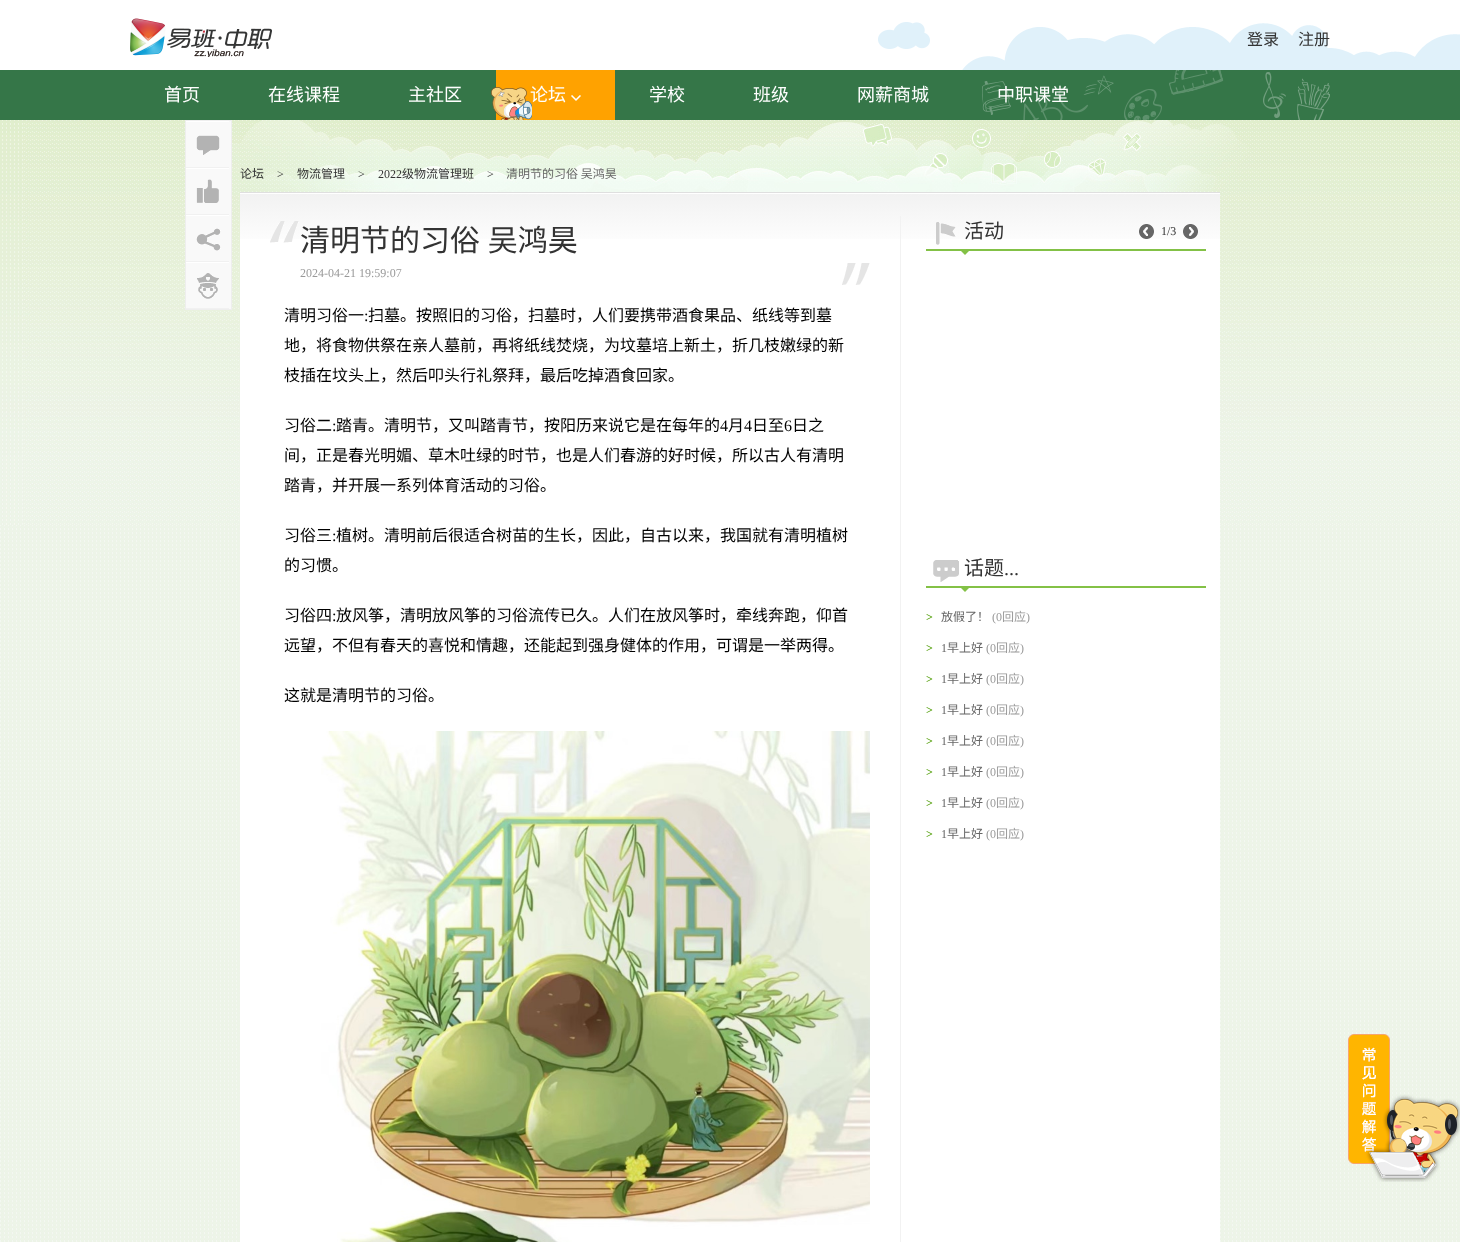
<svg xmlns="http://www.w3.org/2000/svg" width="1460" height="1242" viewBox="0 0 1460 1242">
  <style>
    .t1 { font: 16px Noto Sans CJK SC; fill: #333; }
    .t2 { font: 18px Noto Sans CJK SC; fill: #fff; }
    .t3 { font: 12px Noto Sans CJK SC; fill: #333; }
    .t4 { font: 12px Liberation Serif; fill: #333; }
    .t5 { font: 12px Noto Sans CJK SC; fill: #666; }
    .t6 { font: 30px Noto Sans CJK SC; fill: #333; }
    .t7 { font: 12px Liberation Serif; fill: #999; }
    .t8 { font: 16px Noto Sans CJK SC; fill: #000; }
    .t9 { font: 16px Liberation Serif; fill: #000; }
    .t10 { font: 20px Noto Sans CJK SC; fill: #333; }
    .t11 { font: 20px Liberation Serif; fill: #333; }
    .t12 { font: bold 12px Liberation Serif; fill: #4d9c02; }
    .t13 { font: 12px Noto Sans CJK SC; fill: #999; }
    .t14 { font: 12px Liberation Serif; fill: #666; }
  </style>
  <defs>
    <linearGradient id="g1" gradientUnits="userSpaceOnUse" x1="730" y1="194" x2="730" y2="250"><stop offset="0" stop-color="#f2f2f2"/><stop offset="1" stop-color="#fff"/></linearGradient>
  </defs>
  <rect width="100%" height="100%" fill="#fff"/>
  <image x="0" y="525" width="1460" height="717" href="images/1.png"/>
  <image x="878" y="22" width="582" height="48" href="images/2.png"/>
  <image x="130" y="18" width="142" height="39" href="images/3.png"/>
  <text x="1247" y="45" class="t1">登录</text>
  <text x="1298" y="45" class="t1">注册</text>
  <rect x="0" y="70" width="1460" height="50" fill="#357648"/>
  <image x="982" y="70" width="348" height="50" href="images/4.png"/>
  <text x="164" y="101" class="t2">首页</text>
  <text x="268" y="101" class="t2">在线课程</text>
  <text x="408" y="101" class="t2">主社区</text>
  <rect x="496" y="70" width="119" height="50" fill="#ffa200"/>
  <text x="530" y="101" class="t2">论坛</text>
  <image x="491" y="87" width="41" height="33" href="images/5.png"/>
  <image x="571" y="95" width="10" height="6" href="images/6.png"/>
  <text x="649" y="101" class="t2">学校</text>
  <text x="753" y="101" class="t2">班级</text>
  <text x="857" y="101" class="t2">网薪商城</text>
  <text x="997" y="101" class="t2">中职课堂</text>
  <image x="0" y="120" width="1460" height="405" href="images/11.png"/>
  <rect x="185.5" y="120.5" width="46" height="189" fill="#f9f9f9" stroke="#eee"/>
  <rect x="186" y="121" width="43" height="1" fill="#fff"/>
  <rect x="186" y="167" width="43" height="1" fill="#f1f1f1"/>
  <image x="196" y="135" width="24" height="20" href="images/7.png"/>
  <rect x="186" y="168" width="43" height="1" fill="#fff"/>
  <rect x="186" y="214" width="43" height="1" fill="#f1f1f1"/>
  <image x="196" y="179" width="23" height="24" href="images/8.png"/>
  <rect x="186" y="215" width="43" height="1" fill="#fff"/>
  <rect x="186" y="261" width="43" height="1" fill="#f1f1f1"/>
  <image x="196" y="228" width="25" height="23" href="images/9.png"/>
  <rect x="186" y="262" width="43" height="1" fill="#fff"/>
  <rect x="186" y="308" width="43" height="1" fill="#f1f1f1"/>
  <image x="197" y="273" width="22" height="26" href="images/10.png"/>
  <text x="240" y="178" class="t3">论坛</text>
  <text x="277" y="178" class="t4">&gt;</text>
  <text x="297" y="178" class="t3">物流管理</text>
  <text x="358" y="178" class="t4">&gt;</text>
  <text x="378" y="178" class="t4">2022</text>
  <text x="402" y="178" class="t3">级物流管理班</text>
  <text x="487" y="178" class="t4">&gt;</text>
  <text x="506" y="178" class="t5">清明节的习俗 吴鸿昊</text>
  <rect x="240" y="193" width="980" height="1049" fill="#fff"/>
  <rect x="240" y="192" width="980" height="1" fill="#dfdfdf"/>
  <rect x="240" y="194" width="980" height="45" fill="url(#g1)"/>
  <rect x="900" y="216" width="1" height="1026" fill="#f2f2f2"/>
  <image x="270" y="221" width="29" height="22" href="images/12.png"/>
  <text x="300" y="251" word-spacing="1" class="t6">清明节的习俗 吴鸿昊</text>
  <text x="300" y="277" class="t7">2024-04-21 19:59:07</text>
  <image x="842" y="263" width="28" height="22" href="images/13.png"/>
  <text x="284" y="321" class="t8">清明习俗一</text>
  <text x="364" y="321" class="t9">:</text>
  <text x="368" y="321" class="t8">扫墓。按照旧的习俗，扫墓时，人们要携带酒食果品、纸线等到墓</text>
  <text x="284" y="351" class="t8">地，将食物供祭在亲人墓前，再将纸线焚烧，为坟墓培上新土，折几枝嫩绿的新</text>
  <text x="284" y="381" class="t8">枝插在坟头上，然后叩头行礼祭拜，最后吃掉酒食回家。</text>
  <text x="284" y="431" class="t8">习俗二</text>
  <text x="332" y="431" class="t9">:</text>
  <text x="336" y="431" class="t8">踏青。清明节，又叫踏青节，按阳历来说它是在每年的</text>
  <text x="720" y="431" class="t9">4</text>
  <text x="728" y="431" class="t8">月</text>
  <text x="744" y="431" class="t9">4</text>
  <text x="752" y="431" class="t8">日至</text>
  <text x="784" y="431" class="t9">6</text>
  <text x="792" y="431" class="t8">日之</text>
  <text x="284" y="461" class="t8">间，正是春光明媚、草木吐绿的时节，也是人们春游的好时候，所以古人有清明</text>
  <text x="284" y="491" class="t8">踏青，并开展一系列体育活动的习俗。</text>
  <text x="284" y="541" class="t8">习俗三</text>
  <text x="332" y="541" class="t9">:</text>
  <text x="336" y="541" class="t8">植树。清明前后很适合树苗的生长，因此，自古以来，我国就有清明植树</text>
  <text x="284" y="571" class="t8">的习惯。</text>
  <text x="284" y="621" class="t8">习俗四</text>
  <text x="332" y="621" class="t9">:</text>
  <text x="336" y="621" class="t8">放风筝，清明放风筝的习俗流传已久。人们在放风筝时，牵线奔跑，仰首</text>
  <text x="284" y="651" class="t8">远望，不但有春天的喜悦和情趣，还能起到强身健体的作用，可谓是一举两得。</text>
  <text x="284" y="701" class="t8">这就是清明节的习俗。</text>
  <image x="321" y="731" width="549" height="511" href="images/14.png"/>
  <rect x="926" y="249" width="280" height="2" fill="#83c146"/>
  <image x="936" y="222" width="20" height="23" href="images/15.png"/>
  <text x="964" y="238" class="t10">活动</text>
  <image x="1139" y="224" width="15" height="15" href="images/16.png"/>
  <text x="1161" y="235" class="t4">1/3</text>
  <image x="1183" y="224" width="15" height="15" href="images/17.png"/>
  <path d="M961 251H969L965 255Z" fill="#83c146"/>
  <rect x="926" y="586" width="280" height="2" fill="#83c146"/>
  <image x="933" y="560" width="26" height="22" href="images/18.png"/>
  <text x="964" y="575" class="t10">话题</text>
  <text x="1004" y="575" class="t11">...</text>
  <path d="M961 588H969L965 592Z" fill="#83c146"/>
  <text x="926" y="621" class="t12">&gt;</text>
  <text x="941" y="621" class="t5">放假了！</text>
  <text x="992" y="621" class="t7">(0</text>
  <text x="1002" y="621" class="t13">回应</text>
  <text x="1026" y="621" class="t7">)</text>
  <text x="926" y="652" class="t12">&gt;</text>
  <text x="941" y="652" class="t14">1</text>
  <text x="947" y="652" class="t5">早上好</text>
  <text x="986" y="652" class="t7">(0</text>
  <text x="996" y="652" class="t13">回应</text>
  <text x="1020" y="652" class="t7">)</text>
  <text x="926" y="683" class="t12">&gt;</text>
  <text x="941" y="683" class="t14">1</text>
  <text x="947" y="683" class="t5">早上好</text>
  <text x="986" y="683" class="t7">(0</text>
  <text x="996" y="683" class="t13">回应</text>
  <text x="1020" y="683" class="t7">)</text>
  <text x="926" y="714" class="t12">&gt;</text>
  <text x="941" y="714" class="t14">1</text>
  <text x="947" y="714" class="t5">早上好</text>
  <text x="986" y="714" class="t7">(0</text>
  <text x="996" y="714" class="t13">回应</text>
  <text x="1020" y="714" class="t7">)</text>
  <text x="926" y="745" class="t12">&gt;</text>
  <text x="941" y="745" class="t14">1</text>
  <text x="947" y="745" class="t5">早上好</text>
  <text x="986" y="745" class="t7">(0</text>
  <text x="996" y="745" class="t13">回应</text>
  <text x="1020" y="745" class="t7">)</text>
  <text x="926" y="776" class="t12">&gt;</text>
  <text x="941" y="776" class="t14">1</text>
  <text x="947" y="776" class="t5">早上好</text>
  <text x="986" y="776" class="t7">(0</text>
  <text x="996" y="776" class="t13">回应</text>
  <text x="1020" y="776" class="t7">)</text>
  <text x="926" y="807" class="t12">&gt;</text>
  <text x="941" y="807" class="t14">1</text>
  <text x="947" y="807" class="t5">早上好</text>
  <text x="986" y="807" class="t7">(0</text>
  <text x="996" y="807" class="t13">回应</text>
  <text x="1020" y="807" class="t7">)</text>
  <text x="926" y="838" class="t12">&gt;</text>
  <text x="941" y="838" class="t14">1</text>
  <text x="947" y="838" class="t5">早上好</text>
  <text x="986" y="838" class="t7">(0</text>
  <text x="996" y="838" class="t13">回应</text>
  <text x="1020" y="838" class="t7">)</text>
  <image x="1348" y="1034" width="112" height="148" href="images/19.png"/>
</svg>
